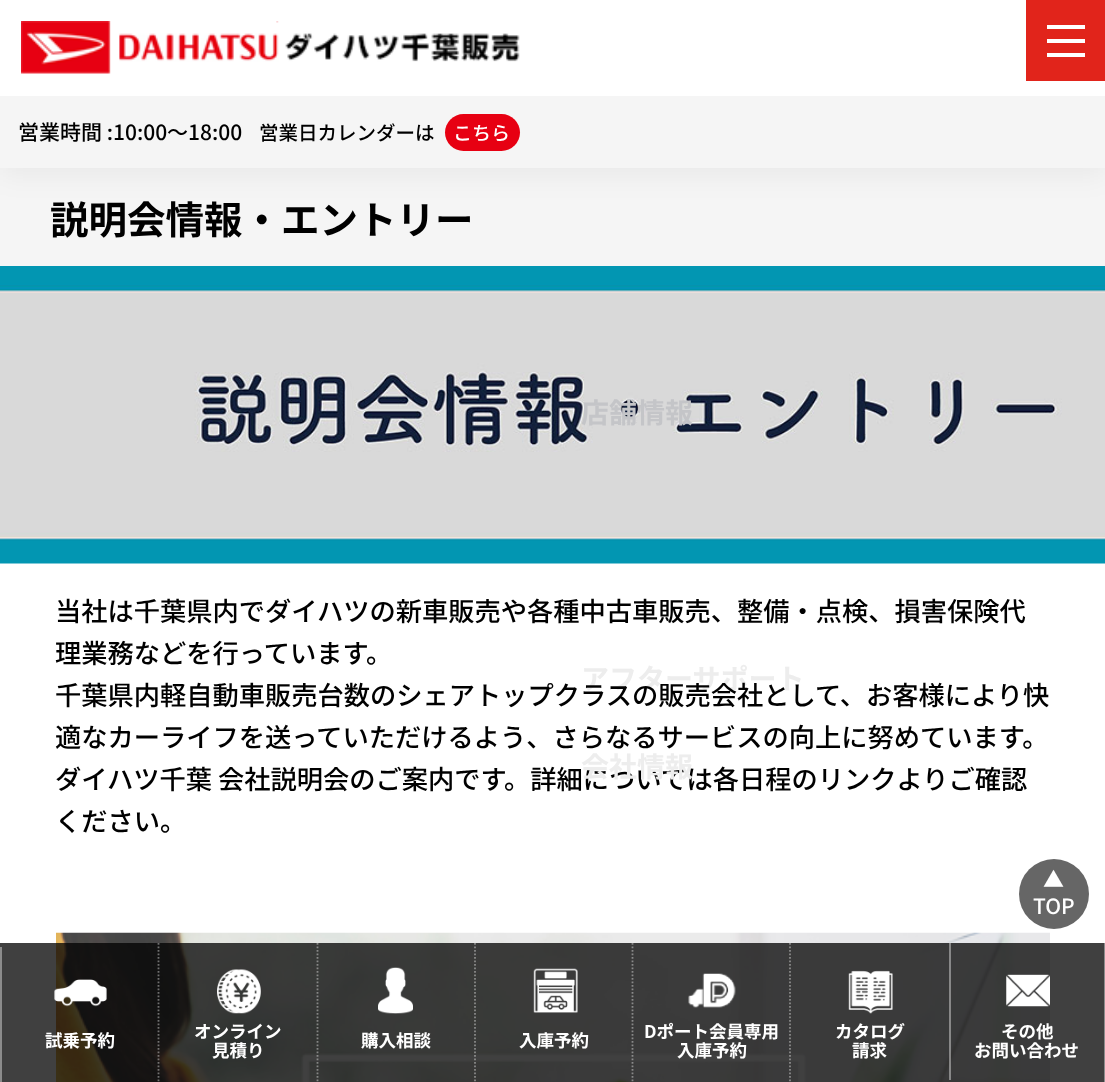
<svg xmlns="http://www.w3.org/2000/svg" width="1105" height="1082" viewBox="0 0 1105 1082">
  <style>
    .t1 { font: 500 21px Noto Sans JP; fill: #000; }
    .t2 { font: 500 19.5px Noto Sans JP; fill: #000; }
    .t3 { font: 500 19px Noto Sans JP; fill: #fff; }
    .t4 { font: bold 28px Noto Sans JP; fill: #c4c5c8; }
    .t5 { font: bold 28px Noto Sans JP; fill: #ededed; }
    .t6 { font: 500 26.25px Noto Sans JP; fill: #000; }
    .t7 { font: bold 38.5px Noto Sans JP; fill: #000; }
    .t8 { font: 500 21px Noto Sans JP; fill: #fff; }
    .t9 { font: bold 17.5px Noto Sans JP; fill: #fff; }
  </style>
  <rect width="100%" height="100%" fill="#f5f5f5"/>
  <rect x="0" y="7" width="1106" height="168" fill="#0000000d" filter="blur(14px)"/>
  <rect x="0" y="0" width="1105" height="96" fill="#fff"/>
  <image x="21" y="21" width="499" height="53" href="images/1.png"/>
  <rect x="1026" y="0" width="79" height="81" fill="#e1241b"/>
  <rect x="1047" y="25" width="38" height="4" fill="#fff"/>
  <rect x="1047" y="39" width="38" height="4" fill="#fff"/>
  <rect x="1047" y="53" width="38" height="4" fill="#fff"/>
  <rect x="0" y="96" width="1105" height="72" fill="#f5f5f5"/>
  <text x="18" y="140" class="t1">営業時間 :10:00～18:00</text>
  <text x="259" y="140" class="t2">営業日カレンダーは</text>
  <rect x="445" y="114" width="75" height="37" rx="18.5" fill="#e70012"/>
  <text x="453" y="140" class="t3">こちら</text>
  <rect x="0" y="563" width="1105" height="380" fill="#fff"/>
  <image x="0" y="266" width="1105" height="298" href="images/2.png"/>
  <text x="581" y="423" class="t4">店舗情報</text>
  <text x="581" y="689" class="t5">アフターサポート</text>
  <text x="55" y="789" class="t6">ダイハツ千葉 会社説明会のご案内です。詳細については各日程のリンクよりご確認</text>
  <text x="581" y="777" class="t5">会社情報</text>
  <rect x="0" y="943" width="1104" height="139" fill="#404040"/>
  <text x="50" y="234" class="t7">説明会情報・エントリー</text>
  <text x="55" y="621" class="t6">当社は千葉県内でダイハツの新車販売や各種中古車販売、整備・点検、損害保険代</text>
  <text x="55" y="663" class="t6">理業務などを行っています。</text>
  <text x="55" y="705" class="t6">千葉県内軽自動車販売台数のシェアトップクラスの販売会社として、お客様により快</text>
  <text x="55" y="747" class="t6">適なカーライフを送っていただけるよう、さらなるサービスの向上に努めています。</text>
  <text x="55" y="831" class="t6">ください。</text>
  <image x="56" y="932" width="994" height="150" href="images/3.png"/>
  <circle cx="1054" cy="894" r="35" fill="#666"/>
  <text x="1043" y="887" class="t8">▲</text>
  <text x="1033" y="914" class="t8">TOP</text>
  <image x="54" y="979" width="53" height="28" href="images/4.png"/>
  <rect x="0" y="947" width="2" height="135" fill="#8c8c8c"/>
  <text x="45" y="1047" class="t9">試乗予約</text>
  <image x="217" y="969" width="44" height="45" href="images/5.png"/>
  <path d="M158.5 943V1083" fill="none" stroke="#ffffff66" stroke-width="1.8" stroke-dasharray="1.75 1.75"/>
  <text x="194" y="1038" class="t9">オンライン</text>
  <text x="212" y="1057" class="t9">見積り</text>
  <image x="378" y="967" width="35" height="47" href="images/6.png"/>
  <path d="M317.5 943V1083" fill="none" stroke="#ffffff66" stroke-width="1.8" stroke-dasharray="1.75 1.75"/>
  <text x="361" y="1047" class="t9">購入相談</text>
  <image x="533" y="968" width="45" height="45" href="images/7.png"/>
  <path d="M475 943V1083" fill="none" stroke="#ffffff66" stroke-width="1.8" stroke-dasharray="1.75 1.75"/>
  <text x="519" y="1047" class="t9">入庫予約</text>
  <image x="688" y="973" width="48" height="35" href="images/8.png"/>
  <path d="M632.5 943V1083" fill="none" stroke="#ffffff66" stroke-width="1.8" stroke-dasharray="1.75 1.75"/>
  <text x="644" y="1038" class="t9">Dポート会員専用</text>
  <text x="677" y="1057" class="t9">入庫予約</text>
  <image x="848" y="970" width="45" height="44" href="images/9.png"/>
  <path d="M790 943V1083" fill="none" stroke="#ffffff66" stroke-width="1.8" stroke-dasharray="1.75 1.75"/>
  <text x="835" y="1038" class="t9">カタログ</text>
  <text x="852" y="1057" class="t9">請求</text>
  <image x="1006" y="974" width="44" height="33" href="images/10.png"/>
  <rect x="1104" y="943" width="1" height="139" fill="#8c8c8c"/>
  <rect x="949" y="943" width="2" height="137" fill="#ffffff66"/>
  <text x="1001" y="1038" class="t9">その他</text>
  <text x="974" y="1057" class="t9">お問い合わせ</text>
</svg>
